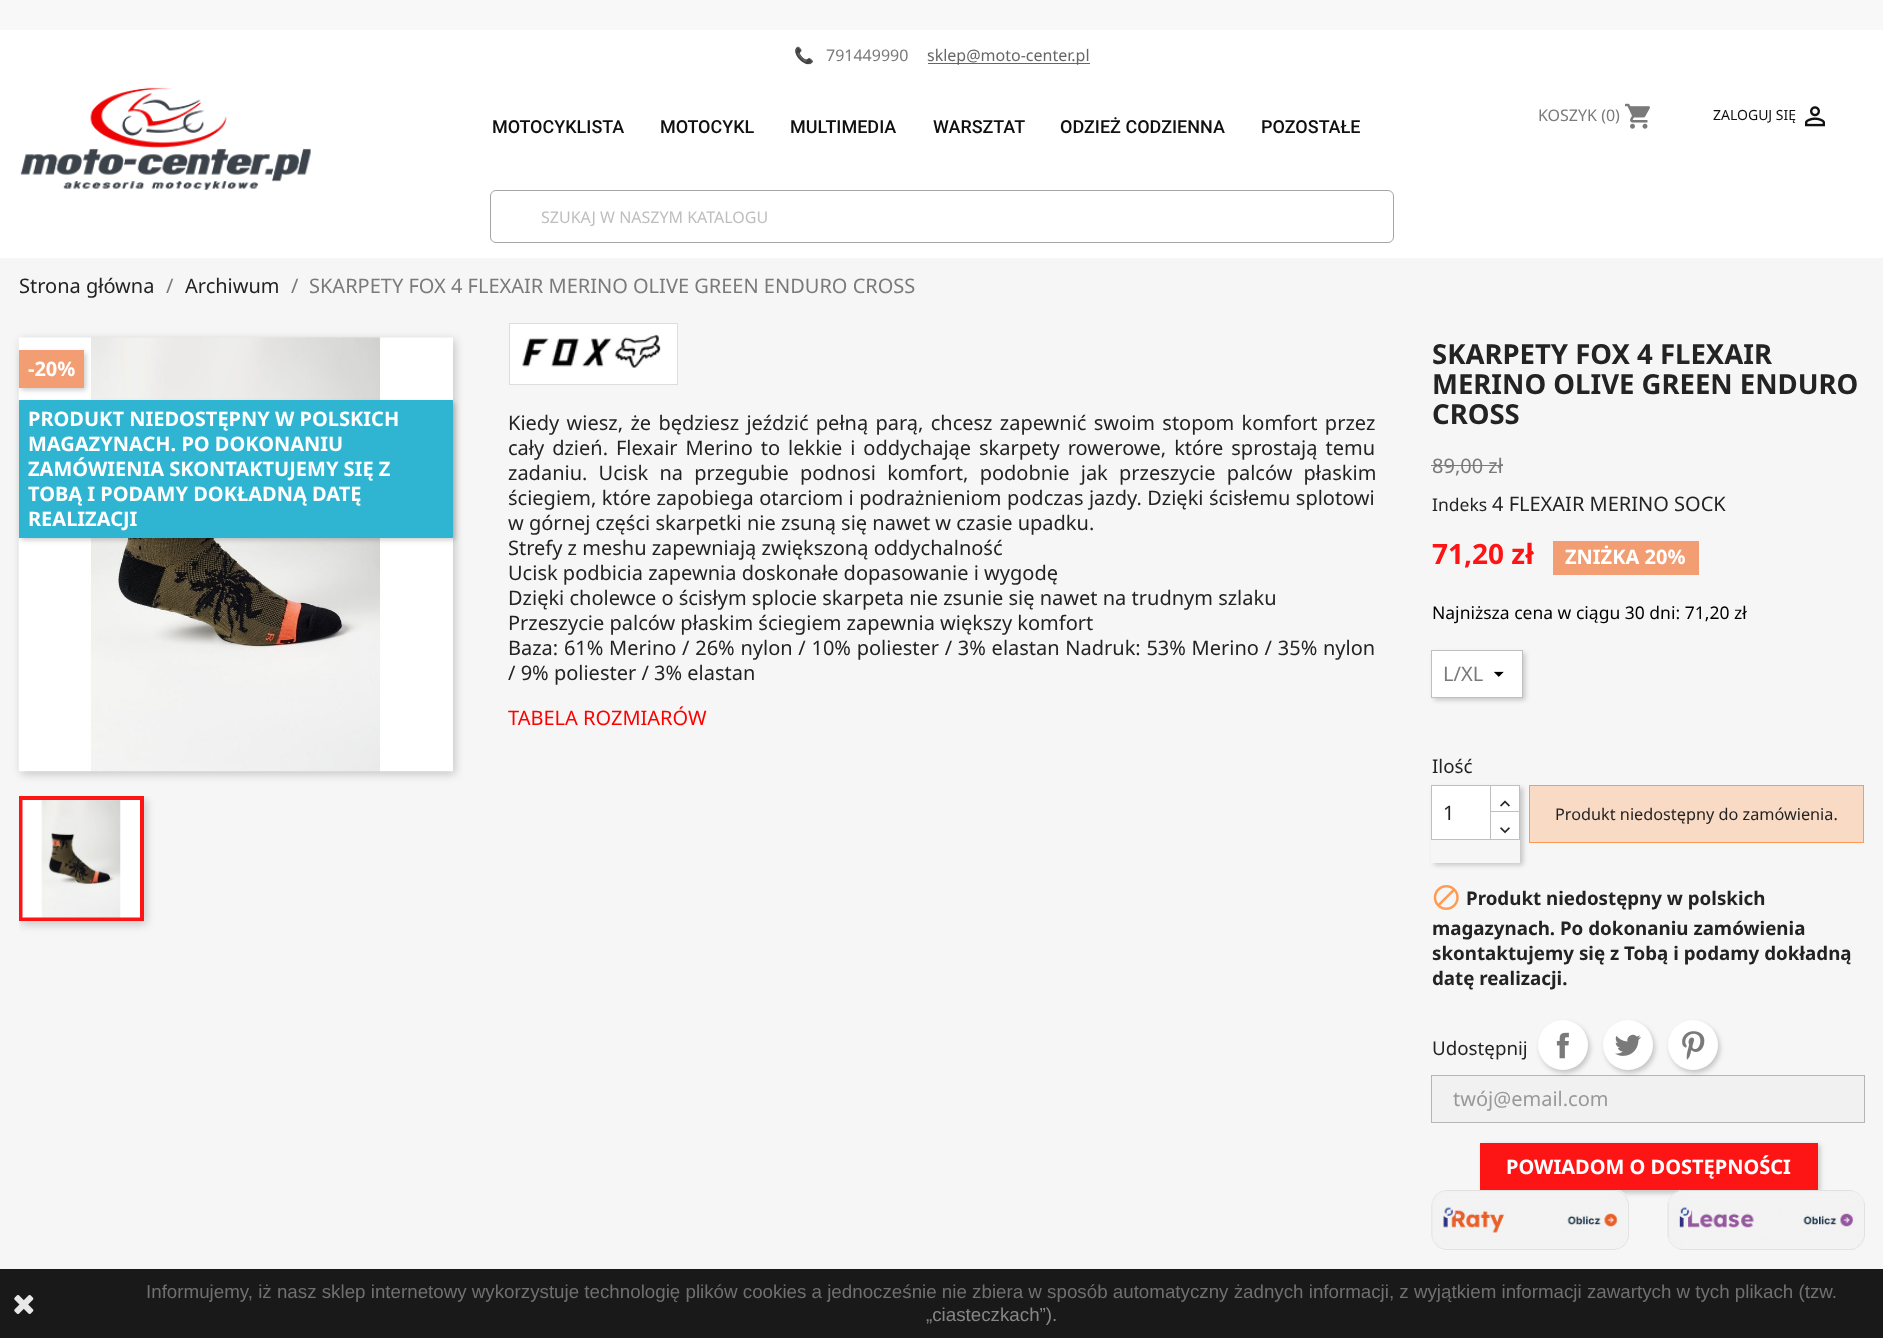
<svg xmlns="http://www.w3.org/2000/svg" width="1883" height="1338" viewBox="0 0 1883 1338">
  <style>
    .t1 { font: 16px Noto Color Emoji; fill: #7a7a7a; }
    .t2 { font: 16px Noto Sans; fill: #7a7a7a; }
    .t3 { font: 16px Noto Sans; fill: #666; }
    .t4 { font: 500 18px Roboto; fill: #101010; }
    .t5 { font: 16px Noto Sans; fill: #bebebe; }
    .t6 { font: 14px Noto Sans; fill: #101010; }
    .t7 { font: 20px Noto Sans; fill: #232323; }
    .t8 { font: 20px Noto Sans; fill: #7a7a7a; }
    .t9 { font: bold 20px Noto Sans; fill: #fff; }
    .t10 { font: 20px Noto Sans; fill: #f00; }
    .t11 { font: bold 27.5px Noto Sans; fill: #232323; }
    .t12 { font: 17.5px Noto Sans; fill: #232323; }
    .t13 { font: bold 28px Noto Sans; fill: #fd1515; }
    .t14 { font: 17.5px Noto Sans; fill: #000; }
    .t15 { font: 18.75px Noto Sans; fill: #232323; }
    .t16 { font: 16.25px Noto Sans; fill: #232323; }
    .t17 { font: bold 18.75px Noto Sans; fill: #232323; }
    .t18 { font: 20px Noto Sans; fill: #999; }
    .t19 { font: 18.75px Liberation Sans; fill: #707070; }
    .t20 { font: 18.75px Liberation Sans; fill: #878787; }
  </style>
  <defs>
    <clipPath id="clip1"><rect x="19" y="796" width="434" height="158"/></clipPath>
    <clipPath id="clip2"><path d="M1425 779H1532V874H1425ZM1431 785H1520V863H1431Z" clip-rule="evenodd"/></clipPath>
  </defs>
  <rect width="100%" height="100%" fill="#fff"/>
  <rect x="0" y="1269" width="1883" height="69" fill="#191919"/>
  <rect x="0" y="0" width="1883" height="30" fill="#f8f8f8"/>
  <text x="794" y="61" class="t1">📞</text>
  <text x="826" y="61" class="t2">791449990</text>
  <rect x="928" y="63" width="162" height="1" fill="#666"/>
  <text x="927" y="61" class="t3">sklep@moto-center.pl</text>
  <image x="20" y="87" width="291" height="103" href="images/1.png"/>
  <text x="492" y="133" class="t4">MOTOCYKLISTA</text>
  <text x="660" y="133" class="t4">MOTOCYKL</text>
  <text x="790" y="133" class="t4">MULTIMEDIA</text>
  <text x="933" y="133" class="t4">WARSZTAT</text>
  <text x="1060" y="133" class="t4">ODZIEŻ CODZIENNA</text>
  <text x="1261" y="133" class="t4">POZOSTAŁE</text>
  <rect x="490.5" y="190.5" width="903" height="52" rx="5.5" fill="none" stroke="#a5a5a5"/>
  <text x="541" y="223" class="t5">SZUKAJ W NASZYM KATALOGU</text>
  <text x="1538" y="121" class="t2">KOSZYK (0)</text>
  <image x="1625" y="103" width="25" height="26" href="images/2.png"/>
  <text x="1713" y="120" class="t6">ZALOGUJ SIĘ</text>
  <image x="1805" y="106" width="20" height="21" href="images/3.png"/>
  <rect x="0" y="258" width="1883" height="1011" fill="#f6f6f6"/>
  <text x="19" y="293" class="t7">Strona główna</text>
  <text x="166" y="293" class="t8">/</text>
  <text x="185" y="293" class="t7">Archiwum</text>
  <text x="291" y="293" class="t8">/</text>
  <text x="309" y="293" class="t8">SKARPETY FOX 4 FLEXAIR MERINO OLIVE GREEN ENDURO CROSS</text>
  <rect x="21" y="340" width="434" height="434" fill="#00000033" filter="blur(5px)"/>
  <rect x="452" y="338" width="1" height="433" fill="#fff"/>
  <image x="18" y="337" width="435" height="435" href="images/4.png"/>
  <g clip-path="url(#clip1)">
    <rect x="21" y="799" width="125" height="125" fill="#00000033" filter="blur(5px)"/>
  </g>
  <rect x="21" y="798" width="121" height="121" fill="none" stroke="#fd1515" stroke-width="4"/>
  <image x="22" y="800" width="118" height="118" href="images/5.png"/>
  <rect x="21" y="353" width="65" height="37" fill="#00000033" filter="blur(2.5px)"/>
  <rect x="19" y="350" width="65" height="38" fill="#f39d72"/>
  <text x="28" y="376" class="t9">-20%</text>
  <rect x="21" y="403" width="434" height="137" fill="#00000033" filter="blur(2.5px)"/>
  <rect x="19" y="400" width="434" height="138" fill="#2fb5d2"/>
  <text x="28" y="426" class="t9">PRODUKT NIEDOSTĘPNY W POLSKICH</text>
  <text x="28" y="451" class="t9">MAGAZYNACH. PO DOKONANIU</text>
  <text x="28" y="476" class="t9">ZAMÓWIENIA SKONTAKTUJEMY SIĘ Z</text>
  <text x="28" y="501" class="t9">TOBĄ I PODAMY DOKŁADNĄ DATĘ</text>
  <text x="28" y="526" class="t9">REALIZACJI</text>
  <rect x="509.5" y="323.5" width="168" height="61" fill="#fff" stroke="#ddd"/>
  <image x="522" y="334" width="139" height="34" href="images/6.png"/>
  <text x="508" y="430" word-spacing="2.1" class="t7">Kiedy wiesz, że będziesz jeździć pełną parą, chcesz zapewnić swoim stopom komfort przez</text>
  <text x="508" y="455" word-spacing="2.75" class="t7">cały dzień. Flexair Merino to lekkie i oddychająe skarpety rowerowe, które sprostają temu</text>
  <text x="508" y="480" word-spacing="6" class="t7">zadaniu. Ucisk na przegubie podnosi komfort, podobnie jak przeszycie palców płaskim</text>
  <text x="508" y="505" word-spacing="0.25" class="t7">ściegiem, które zapobiega otarciom i podrażnieniom podczas jazdy. Dzięki ścisłemu splotowi</text>
  <text x="508" y="530" class="t7">w górnej części skarpetki nie zsuną się nawet w czasie upadku.</text>
  <text x="508" y="555" class="t7">Strefy z meshu zapewniają zwiększoną oddychalność</text>
  <text x="508" y="580" class="t7">Ucisk podbicia zapewnia doskonałe dopasowanie i wygodę</text>
  <text x="508" y="605" class="t7">Dzięki cholewce o ścisłym splocie skarpeta nie zsunie się nawet na trudnym szlaku</text>
  <text x="508" y="630" class="t7">Przeszycie palców płaskim ściegiem zapewnia większy komfort</text>
  <text x="508" y="655" word-spacing="0.5" class="t7">Baza: 61% Merino / 26% nylon / 10% poliester / 3% elastan Nadruk: 53% Merino / 35% nylon</text>
  <text x="508" y="680" class="t7">/ 9% poliester / 3% elastan</text>
  <text x="508" y="725" class="t10">TABELA ROZMIARÓW</text>
  <text x="1432" y="364" class="t11">SKARPETY FOX 4 FLEXAIR</text>
  <text x="1432" y="394" class="t11">MERINO OLIVE GREEN ENDURO</text>
  <text x="1432" y="424" class="t11">CROSS</text>
  <text x="1432" y="473" class="t8">89,00 zł</text>
  <rect x="1431" y="465" width="72" height="1" fill="#7a7a7a"/>
  <text x="1432" y="511" class="t12">Indeks</text>
  <text x="1492" y="511" class="t7">4 FLEXAIR MERINO SOCK</text>
  <text x="1432" y="564" class="t13">71,20 zł</text>
  <rect x="1553" y="541" width="146" height="34" fill="#f39d72"/>
  <text x="1565" y="564" class="t9">ZNIŻKA 20%</text>
  <text x="1432" y="619" class="t14">Najniższa cena w ciągu 30 dni: 71,20 zł</text>
  <rect x="1434" y="653" width="91" height="47" fill="#00000033" filter="blur(2.5px)"/>
  <rect x="1432" y="651" width="90" height="46" fill="#fff"/>
  <image x="1493" y="671" width="11" height="6" href="images/7.png"/>
  <rect x="1431.5" y="650.5" width="91" height="47" fill="none" stroke="#bfbfbf"/>
  <text x="1443" y="681" class="t8">L/XL</text>
  <text x="1432" y="773" class="t15">Ilość</text>
  <rect x="1529.5" y="785.5" width="334" height="57" fill="#f9dac5" stroke="#ff9a52"/>
  <g clip-path="url(#clip2)">
    <rect x="1434" y="788" width="89" height="77" fill="#00000033" filter="blur(2.5px)"/>
  </g>
  <rect x="1491" y="786" width="28" height="25" fill="#fff"/>
  <rect x="1490.5" y="785.5" width="29" height="28" fill="none" stroke="#bfbfbf"/>
  <rect x="1490.5" y="811.5" width="29" height="28" fill="#fff" stroke="#bfbfbf"/>
  <rect x="1431.5" y="785.5" width="59" height="54" fill="#fff" stroke="#bfbfbf"/>
  <text x="1443" y="820" class="t7">1</text>
  <image x="1500" y="800" width="10" height="7" href="images/8.png"/>
  <image x="1500" y="827" width="10" height="7" href="images/9.png"/>
  <text x="1555" y="820" class="t16">Produkt niedostępny do zamówienia.</text>
  <image x="1433" y="885" width="26" height="25" href="images/10.png"/>
  <text x="1466" y="905" class="t17">Produkt niedostępny w polskich</text>
  <text x="1432" y="935" class="t17">magazynach. Po dokonaniu zamówienia</text>
  <text x="1432" y="960" class="t17">skontaktujemy się z Tobą i podamy dokładną</text>
  <text x="1432" y="985" class="t17">datę realizacji.</text>
  <text x="1432" y="1055" class="t15">Udostępnij</text>
  <rect x="1431.5" y="1075.5" width="433" height="47" fill="#f1f1f1" stroke="#b5b5b5"/>
  <rect x="1540" y="1023" width="50" height="50" rx="25" fill="#00000033" filter="blur(2.5px)"/>
  <circle cx="1563" cy="1045" r="25" fill="#fff"/>
  <image x="1556" y="1032" width="13" height="27" href="images/11.png"/>
  <rect x="1605" y="1023" width="50" height="50" rx="25" fill="#00000033" filter="blur(2.5px)"/>
  <circle cx="1628" cy="1045" r="25" fill="#fff"/>
  <image x="1615" y="1034" width="26" height="22" href="images/12.png"/>
  <rect x="1670" y="1023" width="50" height="50" rx="25" fill="#00000033" filter="blur(2.5px)"/>
  <circle cx="1693" cy="1045" r="25" fill="#fff"/>
  <image x="1682" y="1031" width="23" height="29" href="images/13.png"/>
  <text x="1453" y="1106" class="t18">twój@email.com</text>
  <rect x="1483" y="1145" width="337" height="48" fill="#00000033" filter="blur(2.5px)"/>
  <rect x="1480" y="1143" width="338" height="47" fill="#fd1515"/>
  <text x="1506" y="1174" class="t9">POWIADOM O DOSTĘPNOŚCI</text>
  <image x="1431" y="1190" width="198" height="60" href="images/14.png"/>
  <image x="1667" y="1190" width="198" height="60" href="images/15.png"/>
  <image x="14" y="1295" width="20" height="19" href="images/16.png"/>
  <text x="146" y="1298" class="t19">Informujemy, iż nasz sklep internetowy wykorzystuje technologię plików cookies a jednocześnie nie zbiera w sposób automatyczny żadnych informacji, z wyjątkiem informacji zawartych w tych plikach (tzw.</text>
  <text x="926" y="1321" class="t20">„ciasteczkach”).</text>
</svg>
